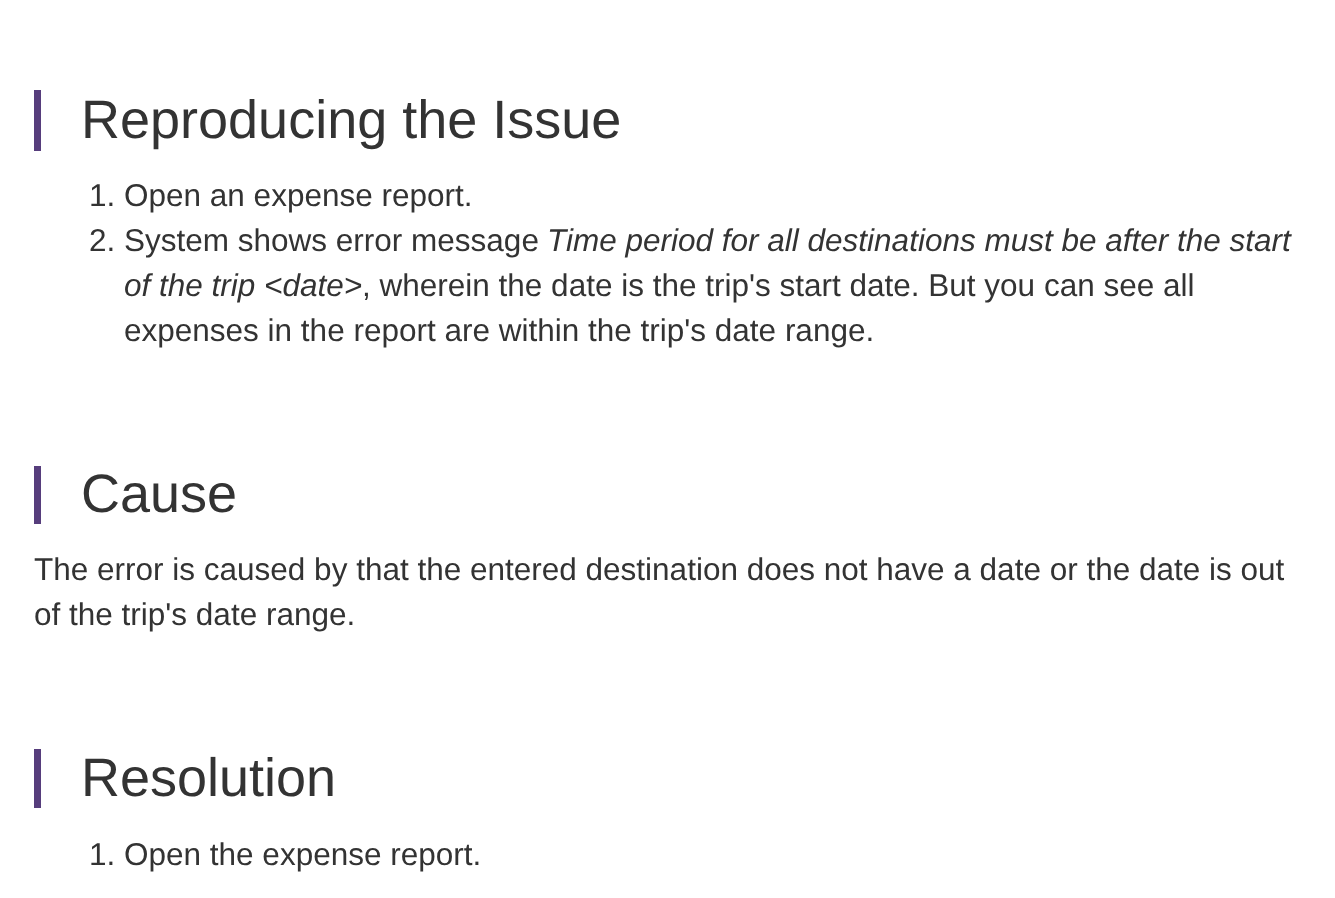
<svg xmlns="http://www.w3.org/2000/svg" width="1335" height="898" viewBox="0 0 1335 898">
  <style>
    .t1 { font: 54px Liberation Sans; fill: #333; }
    .t2 { font: 31.5px Liberation Sans; fill: #333; }
    .t3 { font: italic 31.5px Liberation Sans; fill: #333; }
  </style>
  <rect width="100%" height="100%" fill="#fff"/>
  <rect x="34" y="90" width="7" height="61" fill="#563d7c"/>
  <text x="81" y="138" class="t1">Reproducing the Issue</text>
  <text x="89" y="206" class="t2">1. Open an expense report.</text>
  <text x="89" y="251" class="t2">2. System shows error message</text>
  <text x="547" y="251" class="t3">Time period for all destinations must be after the start</text>
  <text x="124" y="296" class="t3">of the trip &lt;date&gt;</text>
  <text x="362" y="296" class="t2">, wherein the date is the trip's start date. But you can see all</text>
  <text x="124" y="341" class="t2">expenses in the report are within the trip's date range.</text>
  <rect x="34" y="466" width="7" height="58" fill="#563d7c"/>
  <text x="81" y="512" class="t1">Cause</text>
  <text x="34" y="580" class="t2">The error is caused by that the entered destination does not have a date or the date is out</text>
  <text x="34" y="625" class="t2">of the trip's date range.</text>
  <rect x="34" y="749" width="7" height="59" fill="#563d7c"/>
  <text x="81" y="796" class="t1">Resolution</text>
  <text x="89" y="865" class="t2">1. Open the expense report.</text>
</svg>
